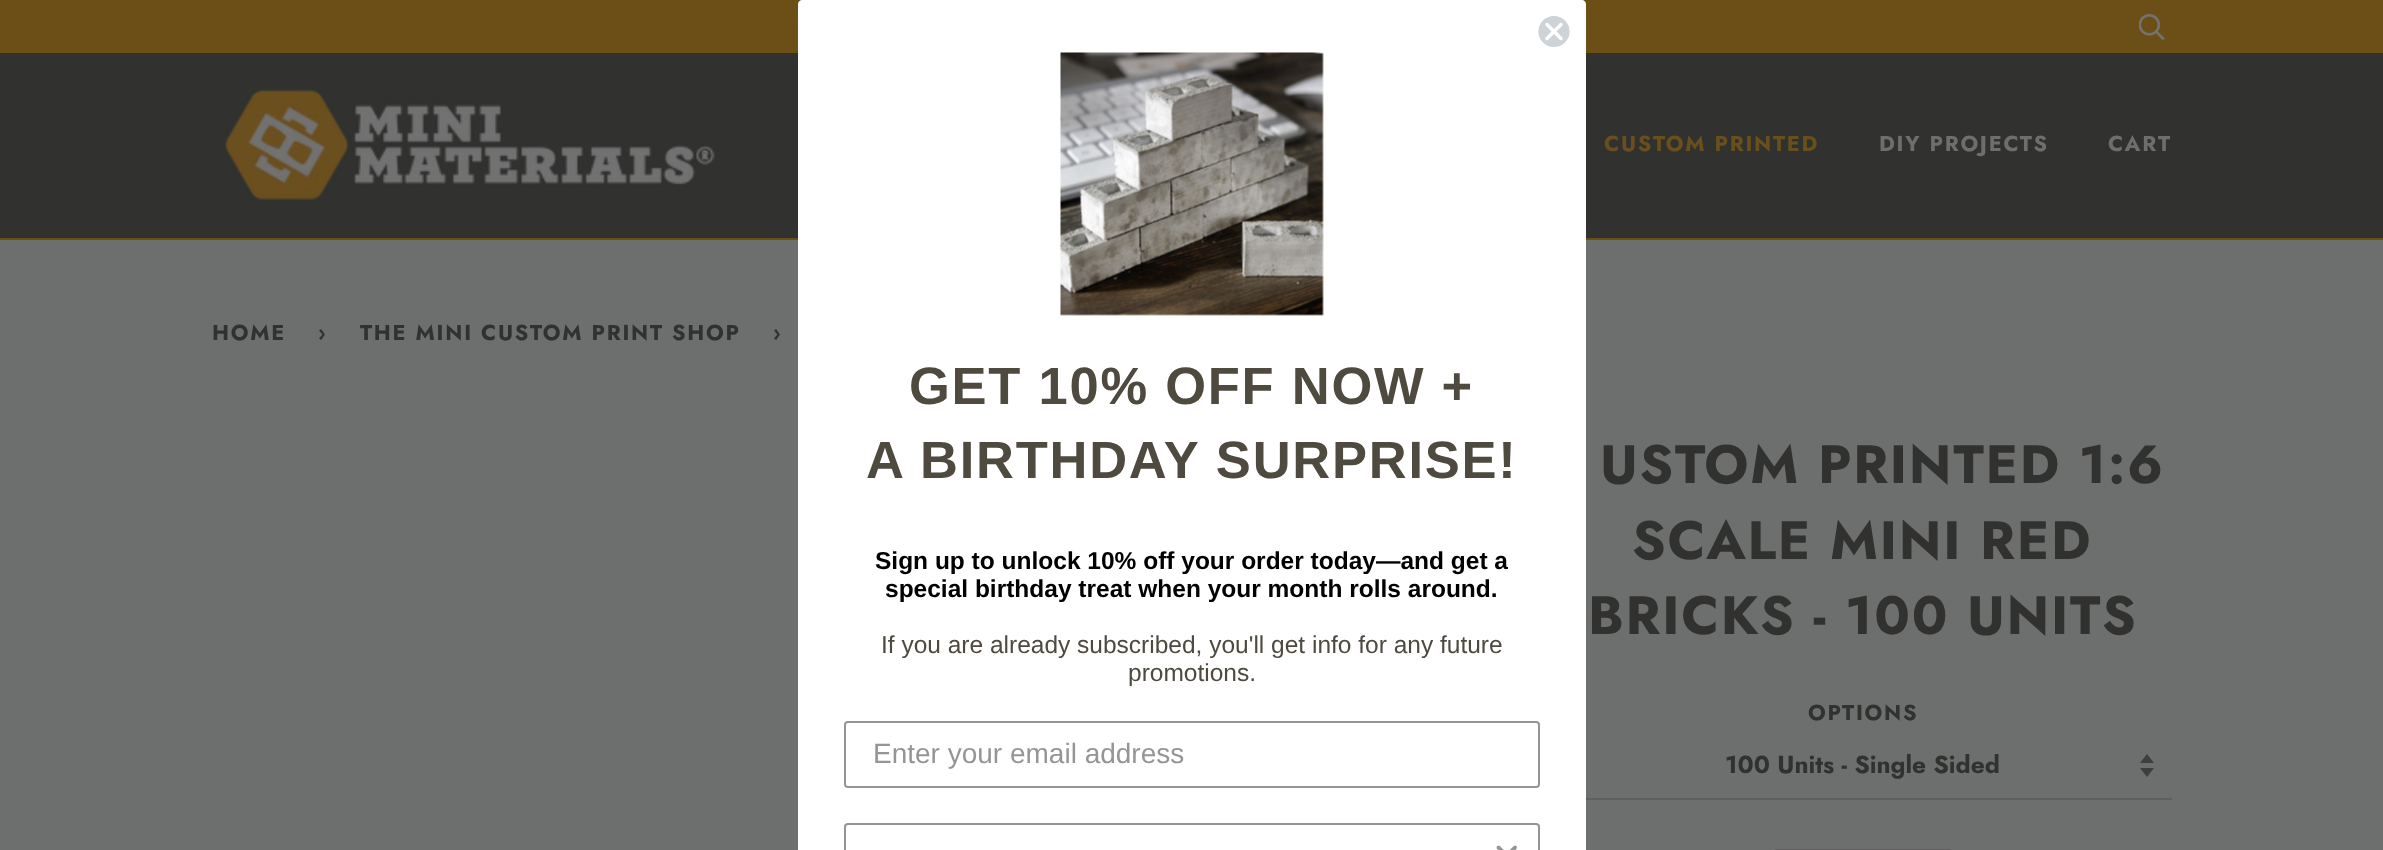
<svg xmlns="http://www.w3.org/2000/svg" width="2383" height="850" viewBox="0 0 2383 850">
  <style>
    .t1 { font: bold 21.6px Jost; letter-spacing: 1.75px; fill: #6a4f1e; }
    .t2 { font: bold 21.6px Jost; letter-spacing: 1.75px; fill: #6d6e6e; }
    .t3 { font: bold 21.6px Jost; letter-spacing: 1.75px; fill: #313230; }
    .t4 { font: bold 53.9px Jost; letter-spacing: 1.75px; fill: #313230; }
    .t5 { font: bold 24.5px Jost; fill: #313230; }
    .t6 { font: bold 52.5px Liberation Sans; letter-spacing: 1.75px; fill: #4e4a40; }
    .t7 { font: bold 24.5px Liberation Sans; fill: #000; }
    .t8 { font: 24.5px Liberation Sans; fill: #4e4a40; }
    .t9 { font: 28px Liberation Sans; fill: #949596; }
  </style>
  <defs>
    <clipPath id="clip1"><rect x="1537" y="14" width="35" height="35"/></clipPath>
  </defs>
  <rect width="100%" height="100%" fill="#6d6e6e"/>
  <rect x="0" y="0" width="2383" height="53" fill="#6b4f17"/>
  <image x="2139" y="14" width="26" height="26" href="images/1.png"/>
  <rect x="0" y="53" width="2383" height="185" fill="#313230"/>
  <rect x="0" y="238" width="2383" height="2" fill="#6b4f17"/>
  <image x="225" y="89" width="490" height="111" href="images/2.png"/>
  <text x="1604" y="151" class="t1">CUSTOM PRINTED</text>
  <text x="1879" y="151" class="t2">DIY PROJECTS</text>
  <text x="2108" y="151" class="t2">CART</text>
  <text x="212" y="340" class="t3">HOME</text>
  <text x="318" y="340" class="t3">›</text>
  <text x="360" y="340" class="t3">THE MINI CUSTOM PRINT SHOP</text>
  <text x="773" y="340" class="t3">›</text>
  <text x="1600" y="483" class="t4">USTOM PRINTED 1:6</text>
  <text x="1632" y="559" class="t4">SCALE MINI RED</text>
  <text x="1588" y="634" class="t4">BRICKS - 100 UNITS</text>
  <text x="1808" y="720" class="t3">OPTIONS</text>
  <path d="M2140 768L2147 777L2154 768ZM2147 754L2140 763H2154Z" fill="#3e3e3d"/>
  <rect x="1586" y="798" width="586" height="2" fill="#5f5f5f"/>
  <text x="1725" y="773" class="t5">100 Units - Single Sided</text>
  <rect x="1774" y="850" width="178" height="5" rx="3" fill="none" stroke="#5f5f5f" stroke-width="2"/>
  <path d="M802 0H1582C1584 0 1586 2 1586 4V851H798V4C798 2 800 0 802 0Z" fill="#fff"/>
  <circle cx="1554" cy="31.5" r="16.5" fill="#ced3d8"/>
  <g clip-path="url(#clip1)">
    <circle cx="1554" cy="31.5" r="16.5" fill="none" stroke="#fff" stroke-width="1.8"/>
  </g>
  <path d="M1547 24.5L1561 38.5M1547 38.5L1561 24.5Z" fill="none" stroke="#fff" stroke-width="3.5" stroke-linecap="round" stroke-linejoin="round"/>
  <image x="1060" y="52" width="264" height="264" href="images/3.png"/>
  <text x="909" y="404" class="t6">GET 10% OFF NOW +</text>
  <text x="866" y="478" class="t6">A BIRTHDAY SURPRISE!</text>
  <text x="875" y="569" class="t7">Sign up to unlock 10% off your order today—and get a</text>
  <text x="885" y="597" class="t7">special birthday treat when your month rolls around.</text>
  <text x="881" y="653" class="t8">If you are already subscribed, you'll get info for any future</text>
  <text x="1128" y="681" class="t8">promotions.</text>
  <rect x="845" y="722" width="694" height="65" rx="3" fill="none" stroke="#949596" stroke-width="2"/>
  <text x="873" y="763" class="t9">Enter your email address</text>
  <rect x="845" y="824" width="694" height="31" rx="3" fill="none" stroke="#949596" stroke-width="2"/>
  <image x="1496" y="845" width="21" height="5" href="images/4.png"/>
</svg>
